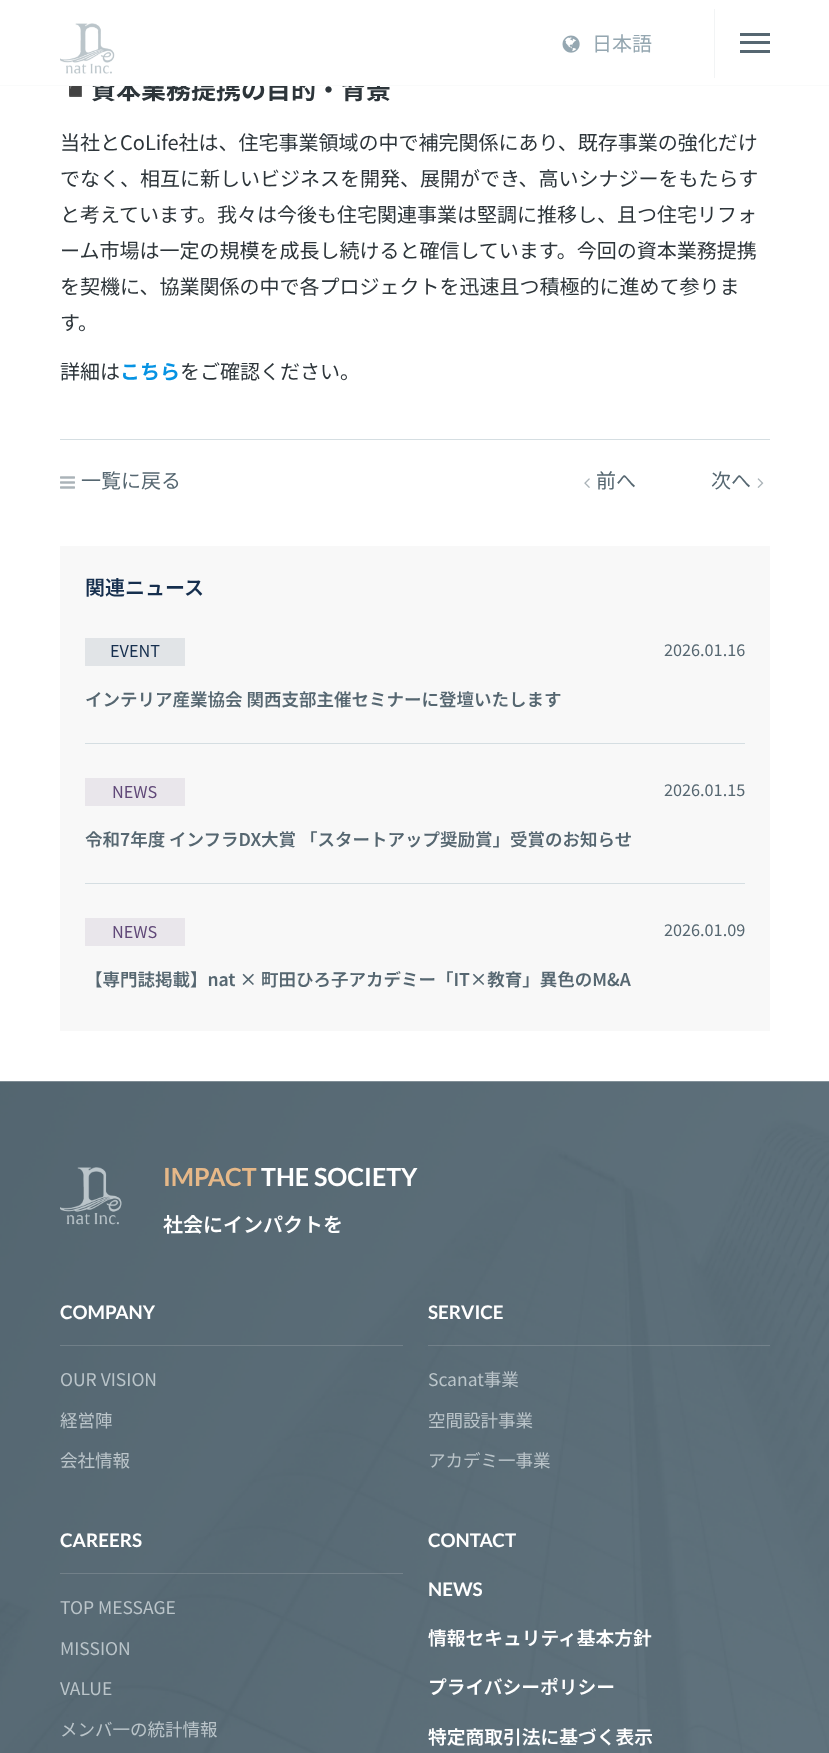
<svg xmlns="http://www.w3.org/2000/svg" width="829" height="1753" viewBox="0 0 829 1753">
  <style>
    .t1 { font: 25px Noto Color Emoji; fill: #2d353a; }
    .t2 { font: bold 25px Noto Sans JP; fill: #2d353a; }
    .t3 { font: 20px Noto Sans JP; fill: #95a7b1; }
    .t4 { font: 20px Noto Sans JP; fill: #2d353a; }
    .t5 { font: bold 20px Noto Sans JP; fill: #0693e3; }
    .t6 { font: 20px Noto Sans JP; fill: #566771; }
    .t7 { font: 600 20px Noto Sans JP; fill: #162f4e; }
    .t8 { font: 16.25px Noto Sans JP; fill: #162f4e; }
    .t9 { font: 16.25px Noto Sans JP; fill: #566771; }
    .t10 { font: 600 17.5px Noto Sans JP; fill: #566771; }
    .t11 { font: 16.25px Noto Sans JP; fill: #604878; }
    .t12 { font: bold 25px Lato; fill: #e6b888; }
    .t13 { font: bold 25px Lato; fill: #fff; }
    .t14 { font: 600 20px Noto Sans JP; fill: #fff; }
    .t15 { font: bold 18.75px Lato; fill: #fff; }
    .t16 { font: 17.5px Noto Sans JP; fill: #bbc5ca; }
    .t17 { font: 600 18.75px Noto Sans JP; fill: #fff; }
  </style>
  <rect width="100%" height="100%" fill="#fff"/>
  <text x="60" y="99" class="t1">◾️</text>
  <text x="91" y="99" class="t2">資本業務提携の目的・背景</text>
  <rect x="60" y="76" width="327" height="9" fill="#fff"/>
  <image x="60" y="23" width="55" height="51" href="images/1.png"/>
  <image x="562" y="35" width="18" height="18" href="images/2.png"/>
  <text x="592" y="51" class="t3">日本語</text>
  <rect x="714" y="9" width="1" height="69" fill="#f2f4f5"/>
  <rect x="740" y="33" width="30" height="3" fill="#566771"/>
  <rect x="740" y="41" width="30" height="3" fill="#566771"/>
  <rect x="740" y="50" width="30" height="3" fill="#566771"/>
  <rect x="0" y="85" width="829" height="1" fill="#fafbfb"/>
  <text x="60" y="150" class="t4">当社とCoLife社は、住宅事業領域の中で補完関係にあり、既存事業の強化だけ</text>
  <text x="60" y="186" class="t4">でなく、相互に新しいビジネスを開発、展開ができ、高いシナジーをもたらす</text>
  <text x="60" y="222" class="t4">と考えています。我々は今後も住宅関連事業は堅調に推移し、且つ住宅リフォ</text>
  <text x="60" y="258" class="t4">ーム市場は一定の規模を成長し続けると確信しています。今回の資本業務提携</text>
  <text x="60" y="294" class="t4">を契機に、協業関係の中で各プロジェクトを迅速且つ積極的に進めて参りま</text>
  <text x="60" y="330" class="t4">す。</text>
  <text x="60" y="379" class="t4">詳細は</text>
  <text x="120" y="379" class="t5">こちら</text>
  <text x="180" y="379" class="t4">をご確認ください。</text>
  <rect x="60" y="439" width="710" height="1" fill="#d5dee2"/>
  <image x="60" y="476" width="15" height="13" href="images/3.png"/>
  <text x="81" y="488" class="t6">一覧に戻る</text>
  <image x="584" y="478" width="6" height="10" href="images/4.png"/>
  <text x="596" y="488" class="t6">前へ</text>
  <text x="711" y="488" class="t6">次へ</text>
  <image x="757" y="478" width="7" height="10" href="images/5.png"/>
  <rect x="60" y="546" width="710" height="485" fill="#f8f8f8"/>
  <text x="85" y="595" class="t7">関連ニュース</text>
  <rect x="85" y="743" width="660" height="1" fill="#d5dee2"/>
  <rect x="85" y="638" width="100" height="28" fill="#e1e4e7"/>
  <text x="110" y="657" class="t8">EVENT</text>
  <text x="664" y="656" class="t9">2026.01.16</text>
  <text x="85" y="706" class="t10">インテリア産業協会 関西支部主催セミナーに登壇いたします</text>
  <rect x="85" y="883" width="660" height="1" fill="#d5dee2"/>
  <rect x="85" y="778" width="100" height="28" fill="#e9e6eb"/>
  <text x="112" y="798" class="t11">NEWS</text>
  <text x="664" y="796" class="t9">2026.01.15</text>
  <text x="85" y="846" class="t10">令和7年度 インフラDX大賞 「スタートアップ奨励賞」受賞のお知らせ</text>
  <rect x="85" y="918" width="100" height="28" fill="#e9e6eb"/>
  <text x="112" y="938" class="t11">NEWS</text>
  <text x="664" y="936" class="t9">2026.01.09</text>
  <text x="85" y="986" class="t10">【専門誌掲載】nat × 町田ひろ子アカデミー「IT×教育」異色のM&amp;A</text>
  <image x="0" y="1081" width="829" height="672" href="images/6.png"/>
  <image x="60" y="1167" width="62" height="58" href="images/7.png"/>
  <text x="163" y="1186" class="t12">IMPACT</text>
  <text x="261" y="1186" class="t13">THE SOCIETY</text>
  <text x="163" y="1232" class="t14">社会にインパクトを</text>
  <rect x="60" y="1345" width="343" height="1" fill="#dddddd33"/>
  <text x="60" y="1319" class="t15">COMPANY</text>
  <text x="60" y="1386" class="t16">OUR VISION</text>
  <text x="60" y="1427" class="t16">経営陣</text>
  <text x="60" y="1467" class="t16">会社情報</text>
  <rect x="428" y="1345" width="342" height="1" fill="#dddddd33"/>
  <text x="428" y="1319" class="t15">SERVICE</text>
  <text x="428" y="1386" class="t16">Scanat事業</text>
  <text x="428" y="1427" class="t16">空間設計事業</text>
  <text x="428" y="1467" class="t16">アカデミ一事業</text>
  <rect x="60" y="1573" width="343" height="1" fill="#dddddd33"/>
  <text x="60" y="1547" class="t15">CAREERS</text>
  <text x="60" y="1614" class="t16">TOP MESSAGE</text>
  <text x="60" y="1655" class="t16">MISSION</text>
  <text x="60" y="1695" class="t16">VALUE</text>
  <text x="60" y="1736" class="t16">メンバ一の統計情報</text>
  <text x="428" y="1547" class="t15">CONTACT</text>
  <text x="428" y="1596" class="t15">NEWS</text>
  <text x="428" y="1645" class="t17">情報セキュリティ基本方針</text>
  <text x="428" y="1694" class="t17">プライバシーポリシー</text>
  <text x="428" y="1744" class="t17">特定商取引法に基づく表示</text>
</svg>
